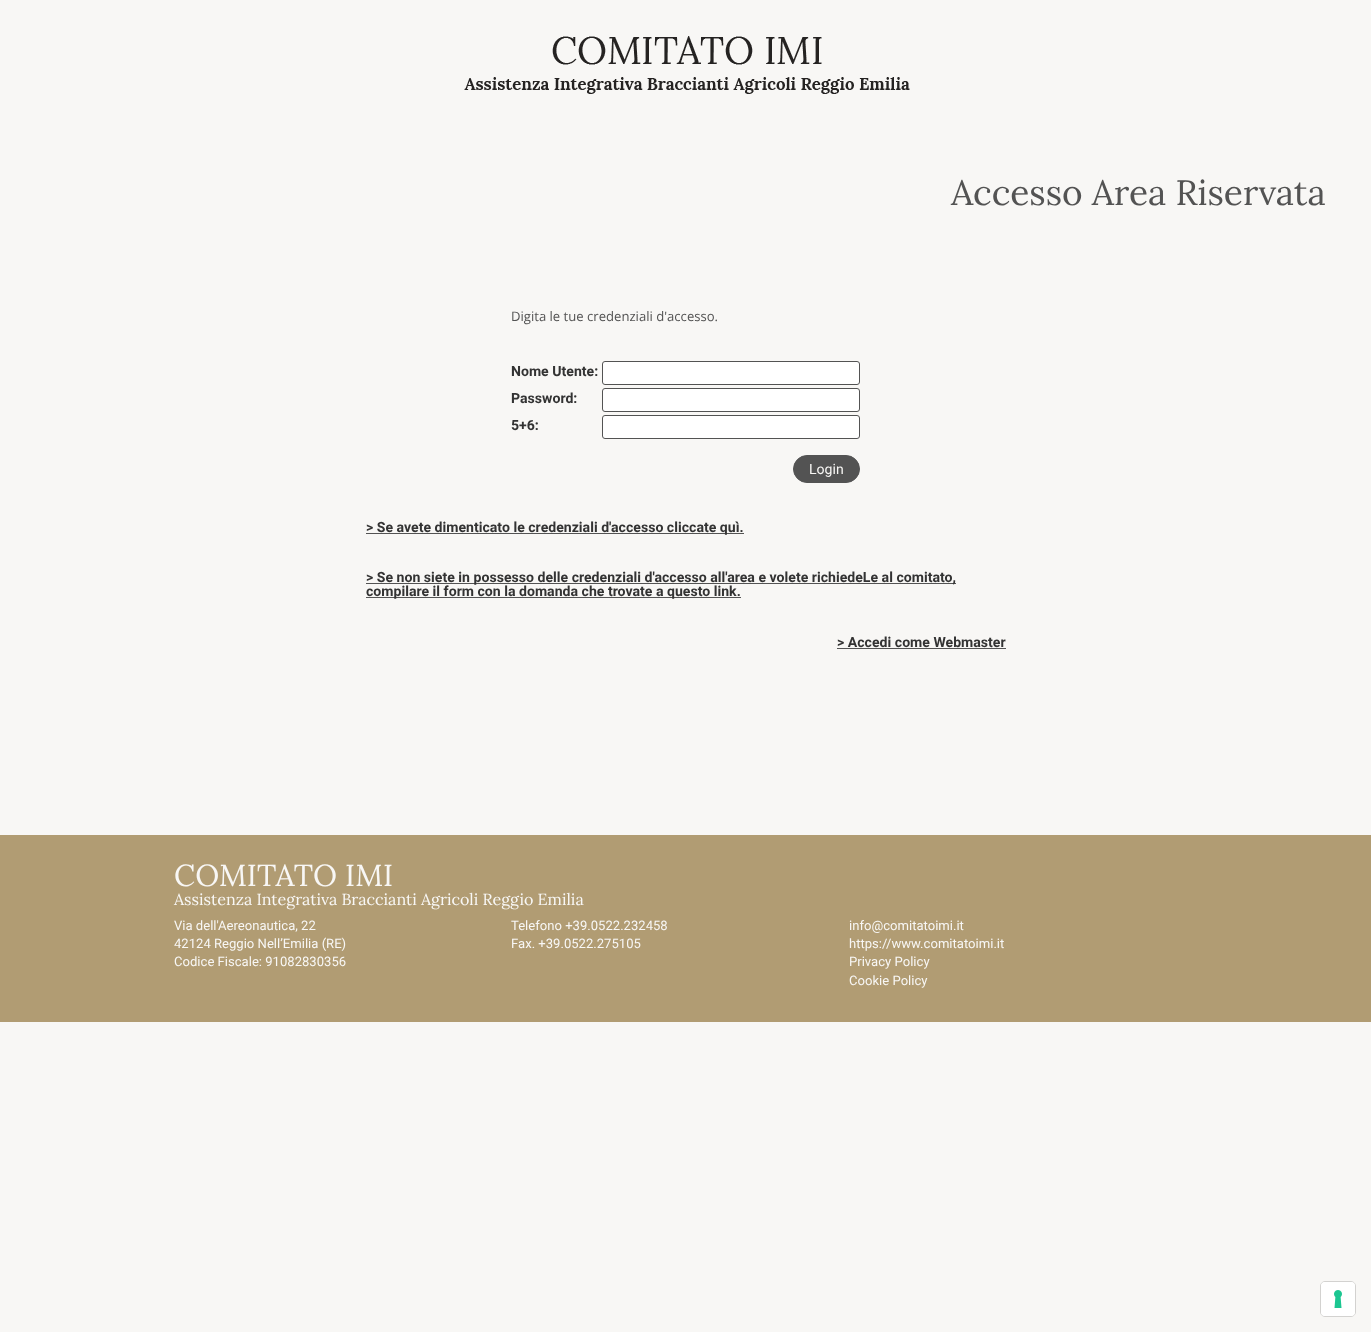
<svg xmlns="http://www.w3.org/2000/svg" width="1371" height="1332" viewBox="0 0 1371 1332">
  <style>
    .t1 { font: 35.25px Lora; fill: #535353; }
    .t2 { font: 13.1px Open Sans; fill: #535353; }
    .t3 { font: bold 14.1px Roboto; fill: #333; }
    .t4 { font: 14.1px Roboto; fill: #f8f7f5; }
    .t5 { font: 30.25px Lora; fill: #f8f7f5; }
    .t6 { font: 16.1px Lora; fill: #f8f7f5; }
    .t7 { font: 13.1px Roboto; fill: #f8f7f5; }
  </style>
  <rect width="100%" height="100%" fill="#f8f7f5"/>
  <image x="464" y="36" width="446" height="58" href="images/1.png"/>
  <text x="951" y="205" class="t1">Accesso Area Riservata</text>
  <text x="511" y="321" class="t2">Digita le tue credenziali d'accesso.</text>
  <text x="511" y="376" class="t3">Nome Utente:</text>
  <rect x="602.5" y="361.5" width="257" height="23" rx="2.5" fill="#fff" stroke="#535353"/>
  <text x="511" y="403" class="t3">Password:</text>
  <rect x="602.5" y="388.5" width="257" height="23" rx="2.5" fill="#fff" stroke="#535353"/>
  <text x="511" y="430" class="t3">5+6:</text>
  <rect x="602.5" y="415.5" width="257" height="23" rx="2.5" fill="#fff" stroke="#535353"/>
  <rect x="793.5" y="455.5" width="66" height="27" rx="13.5" fill="#535353" stroke="#535353"/>
  <text x="809" y="474" class="t4">Login</text>
  <rect x="366" y="533" width="378" height="1" fill="#535353"/>
  <text x="366" y="532" class="t3">&gt; Se avete dimenticato le credenziali d'accesso cliccate quì.</text>
  <rect x="366" y="583" width="590" height="1" fill="#535353"/>
  <text x="366" y="582" class="t3">&gt; Se non siete in possesso delle credenziali d'accesso all'area e volete richiedeLe al comitato,</text>
  <rect x="366" y="597" width="375" height="1" fill="#535353"/>
  <text x="366" y="596" class="t3">compilare il form con la domanda che trovate a questo link.</text>
  <text x="837" y="647" class="t3">&gt; Accedi come Webmaster</text>
  <rect x="837" y="648" width="169" height="1" fill="#535353"/>
  <rect x="0" y="835" width="1371" height="187" fill="#b19c73"/>
  <text x="174" y="886" class="t5">COMITATO IMI</text>
  <text x="174" y="905" class="t6">Assistenza Integrativa Braccianti Agricoli Reggio Emilia</text>
  <text x="174" y="930" class="t7">Via dell'Aereonautica, 22</text>
  <text x="174" y="948" class="t7">42124 Reggio Nell’Emilia (RE)</text>
  <text x="174" y="966" class="t7">Codice Fiscale: 91082830356</text>
  <text x="511" y="930" class="t7">Telefono +39.0522.232458</text>
  <text x="511" y="948" class="t7">Fax. +39.0522.275105</text>
  <text x="849" y="930" class="t7">info@comitatoimi.it</text>
  <text x="849" y="948" class="t7">https://www.comitatoimi.it</text>
  <text x="849" y="966" class="t7">Privacy Policy</text>
  <text x="849" y="985" class="t7">Cookie Policy</text>
  <rect x="1320.5" y="1281.5" width="35" height="35" rx="4.5" fill="none" stroke="#d3d2d0"/>
  <rect x="1321" y="1282" width="34" height="34" rx="4" fill="#fff"/>
  <image x="1334" y="1290" width="8" height="18" href="images/2.png"/>
</svg>
